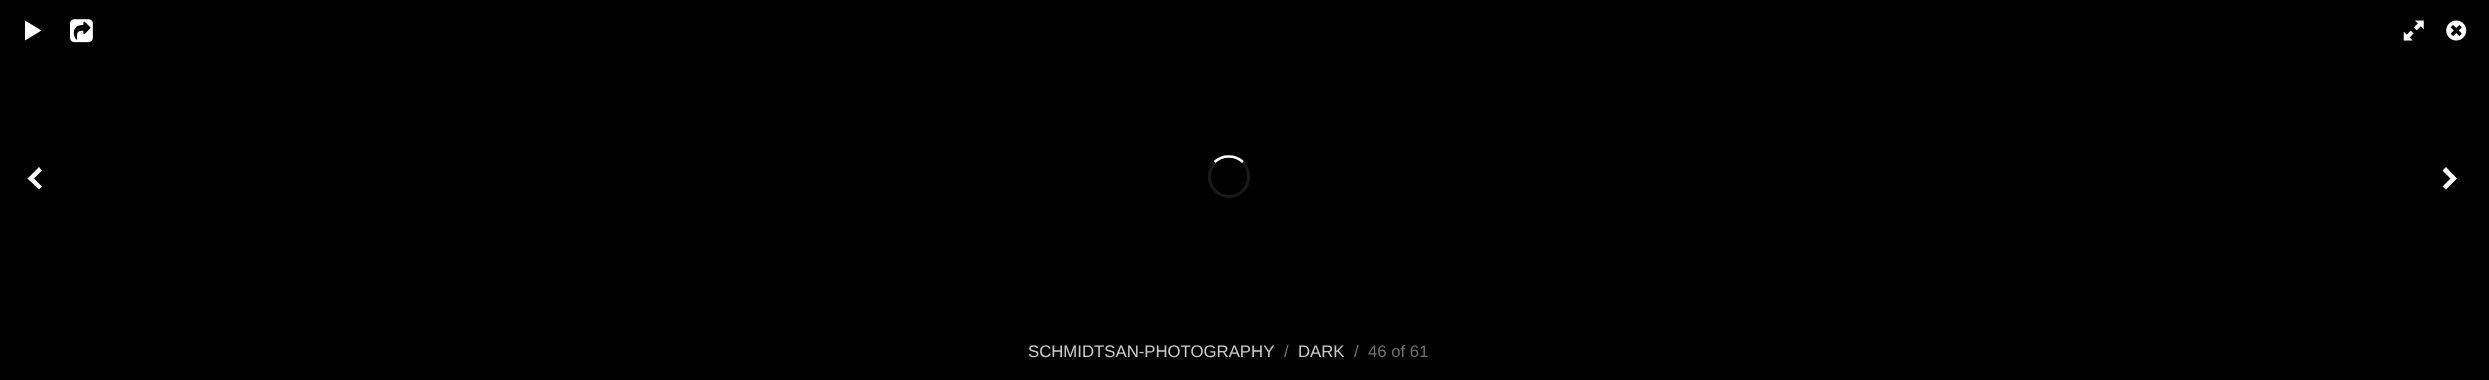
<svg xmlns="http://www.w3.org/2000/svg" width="2489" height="380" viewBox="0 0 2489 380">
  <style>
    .t1 { font: 16.75px Liberation Sans; fill: #ccc; }
    .t2 { font: 16.75px Liberation Sans; fill: #707070; }
  </style>
  <rect width="100%" height="100%" fill="#000"/>
  <path d="M25 40.5V20.5L41.5 30.5Z" fill="#fff"/>
  <image x="70" y="19" width="23" height="24" href="images/1.png"/>
  <image x="2403" y="20" width="21" height="21" href="images/2.png"/>
  <image x="2446" y="20" width="21" height="21" href="images/3.png"/>
  <path d="M27.5 178.5L39 167L42 170.5L34 178.5L42 186.5L39 189.5Z" fill="#fff"/>
  <rect x="1209.5" y="156.5" width="39" height="40" rx="19.5" fill="none" stroke="#1a1a1a" stroke-width="3"/>
  <path d="M1214.5 162C1222.5 154.5 1235 154.5 1243 162" fill="none" stroke="#fff" stroke-width="2.5"/>
  <path d="M2442.5 186.5L2450.5 178.5L2442.5 170.5L2446 167L2457 178.5L2446 189.5Z" fill="#fff"/>
  <text x="1028" y="357" class="t1">SCHMIDTSAN-PHOTOGRAPHY</text>
  <text x="1284" y="357" class="t2">/</text>
  <text x="1298" y="357" class="t1">DARK</text>
  <text x="1354" y="357" class="t2" xml:space="preserve">/  46 of 61</text>
</svg>
